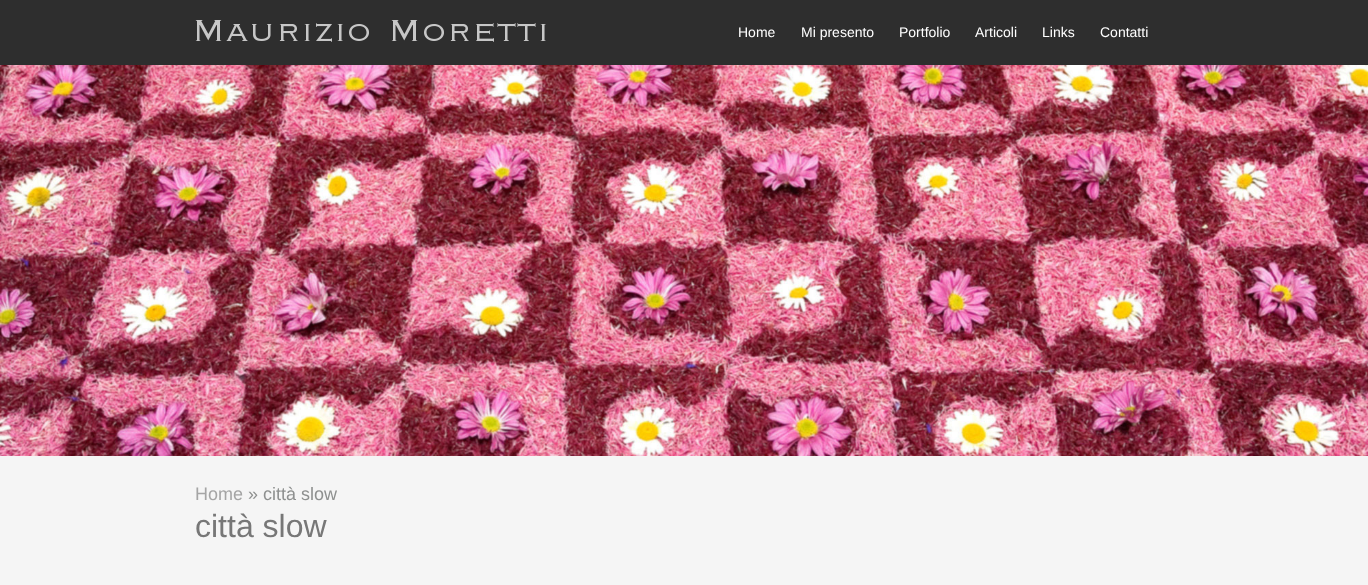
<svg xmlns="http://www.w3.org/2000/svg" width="1368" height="585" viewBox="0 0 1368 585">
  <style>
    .t1 { font: 14px Liberation Sans; fill: #fff; }
    .t2 { font: 18px Liberation Sans; fill: #a5a5a5; }
    .t3 { font: 18px Liberation Sans; fill: #8e908f; }
    .t4 { font: 32px Liberation Sans; fill: #777; }
  </style>
  <rect width="100%" height="100%" fill="#f5f5f5"/>
  <rect x="0" y="0" width="1368" height="65" fill="#2e2e2e"/>
  <image x="195" y="20" width="351" height="22" href="images/1.png"/>
  <text x="738" y="37" class="t1">Home</text>
  <text x="801" y="37" class="t1">Mi presento</text>
  <text x="899" y="37" class="t1">Portfolio</text>
  <text x="975" y="37" class="t1">Articoli</text>
  <text x="1042" y="37" class="t1">Links</text>
  <text x="1100" y="37" class="t1">Contatti</text>
  <image x="0" y="65" width="1368" height="391" href="images/2.png"/>
  <text x="195" y="500" class="t2">Home</text>
  <text x="248" y="500" class="t3">» città slow</text>
  <text x="195" y="537" class="t4">città slow</text>
</svg>
